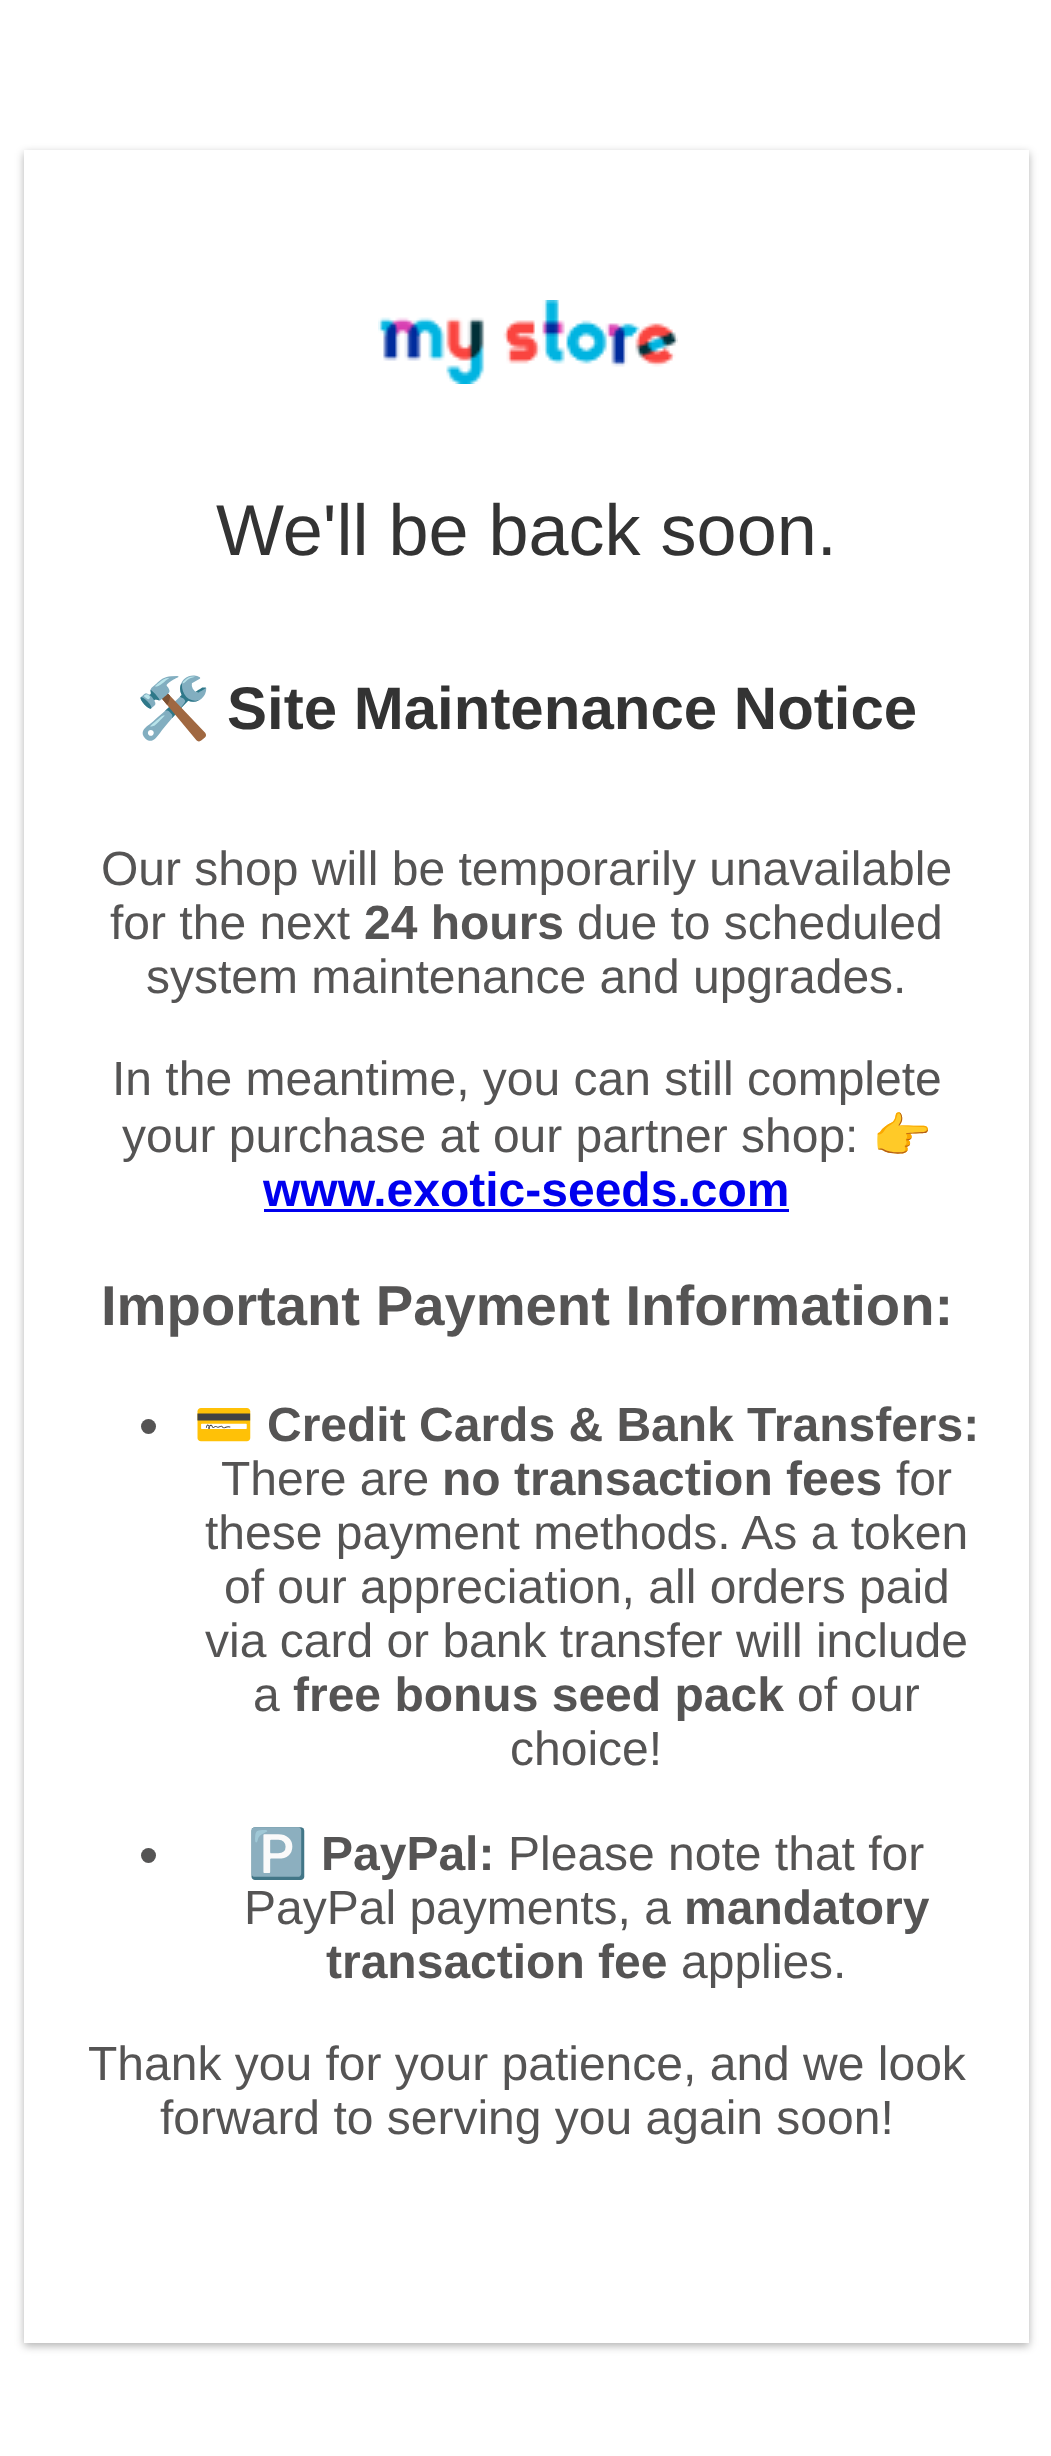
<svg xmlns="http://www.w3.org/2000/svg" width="1051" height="2456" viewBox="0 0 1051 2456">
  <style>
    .t1 { font: 72px Liberation Sans; fill: #333; }
    .t2 { font: 60px Noto Color Emoji; fill: #333; }
    .t3 { font: bold 60px Liberation Sans; fill: #333; }
    .t4 { font: 48px Liberation Sans; fill: #555454; }
    .t5 { font: bold 48px Liberation Sans; fill: #555454; }
    .t6 { font: 48px Noto Color Emoji; fill: #555454; }
    .t7 { font: bold 48px Liberation Sans; fill: #00e; }
    .t8 { font: bold 56.2px Liberation Sans; fill: #555454; }
    .t9 { font: bold 48px Noto Color Emoji; fill: #555454; }
  </style>
  <defs>
    <clipPath id="clip1"><path d="M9 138H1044V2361H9ZM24 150H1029V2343H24Z" clip-rule="evenodd"/></clipPath>
  </defs>
  <rect width="100%" height="100%" fill="#fff"/>
  <g clip-path="url(#clip1)">
    <rect x="24" y="153" width="1005" height="2193" fill="#0000004d" filter="blur(4.5px)"/>
  </g>
  <image x="378" y="300" width="300" height="84" href="images/1.png"/>
  <text x="216" y="555" class="t1">We'll be back soon.</text>
  <text x="136" y="729" class="t2">🛠️</text>
  <text x="227" y="729" class="t3">Site Maintenance Notice</text>
  <text x="101" y="885" class="t4">Our shop will be temporarily unavailable</text>
  <text x="110" y="939" class="t4">for the next</text>
  <text x="364" y="939" class="t5">24 hours</text>
  <text x="577" y="939" class="t4">due to scheduled</text>
  <text x="146" y="993" class="t4">system maintenance and upgrades.</text>
  <text x="112" y="1095" class="t4">In the meantime, you can still complete</text>
  <text x="122" y="1152" class="t4">your purchase at our partner shop:</text>
  <text x="872" y="1152" class="t6">👉</text>
  <text x="263" y="1206" class="t7">www.exotic-seeds.com</text>
  <rect x="264" y="1209" width="525" height="3" fill="#00e"/>
  <text x="101" y="1325" class="t8">Important Payment Information:</text>
  <circle cx="148.5" cy="1426.5" r="7.5" fill="#555454"/>
  <text x="194" y="1441" class="t9">💳</text>
  <text x="267" y="1441" class="t5">Credit Cards &amp; Bank Transfers:</text>
  <text x="221" y="1495" class="t4">There are</text>
  <text x="442" y="1495" class="t5">no transaction fees</text>
  <text x="896" y="1495" class="t4">for</text>
  <text x="205" y="1549" class="t4">these payment methods. As a token</text>
  <text x="224" y="1603" class="t4">of our appreciation, all orders paid</text>
  <text x="205" y="1657" class="t4">via card or bank transfer will include</text>
  <text x="253" y="1711" class="t4">a</text>
  <text x="293" y="1711" class="t5">free bonus seed pack</text>
  <text x="797" y="1711" class="t4">of our</text>
  <text x="510" y="1765" class="t4">choice!</text>
  <circle cx="148.5" cy="1855.5" r="7.5" fill="#555454"/>
  <text x="248" y="1870" class="t9">🅿️</text>
  <text x="321" y="1870" class="t5">PayPal:</text>
  <text x="508" y="1870" class="t4">Please note that for</text>
  <text x="244" y="1924" class="t4">PayPal payments, a</text>
  <text x="684" y="1924" class="t5">mandatory</text>
  <text x="326" y="1978" class="t5">transaction fee</text>
  <text x="681" y="1978" class="t4">applies.</text>
  <text x="88" y="2080" class="t4">Thank you for your patience, and we look</text>
  <text x="160" y="2134" class="t4">forward to serving you again soon!</text>
</svg>
